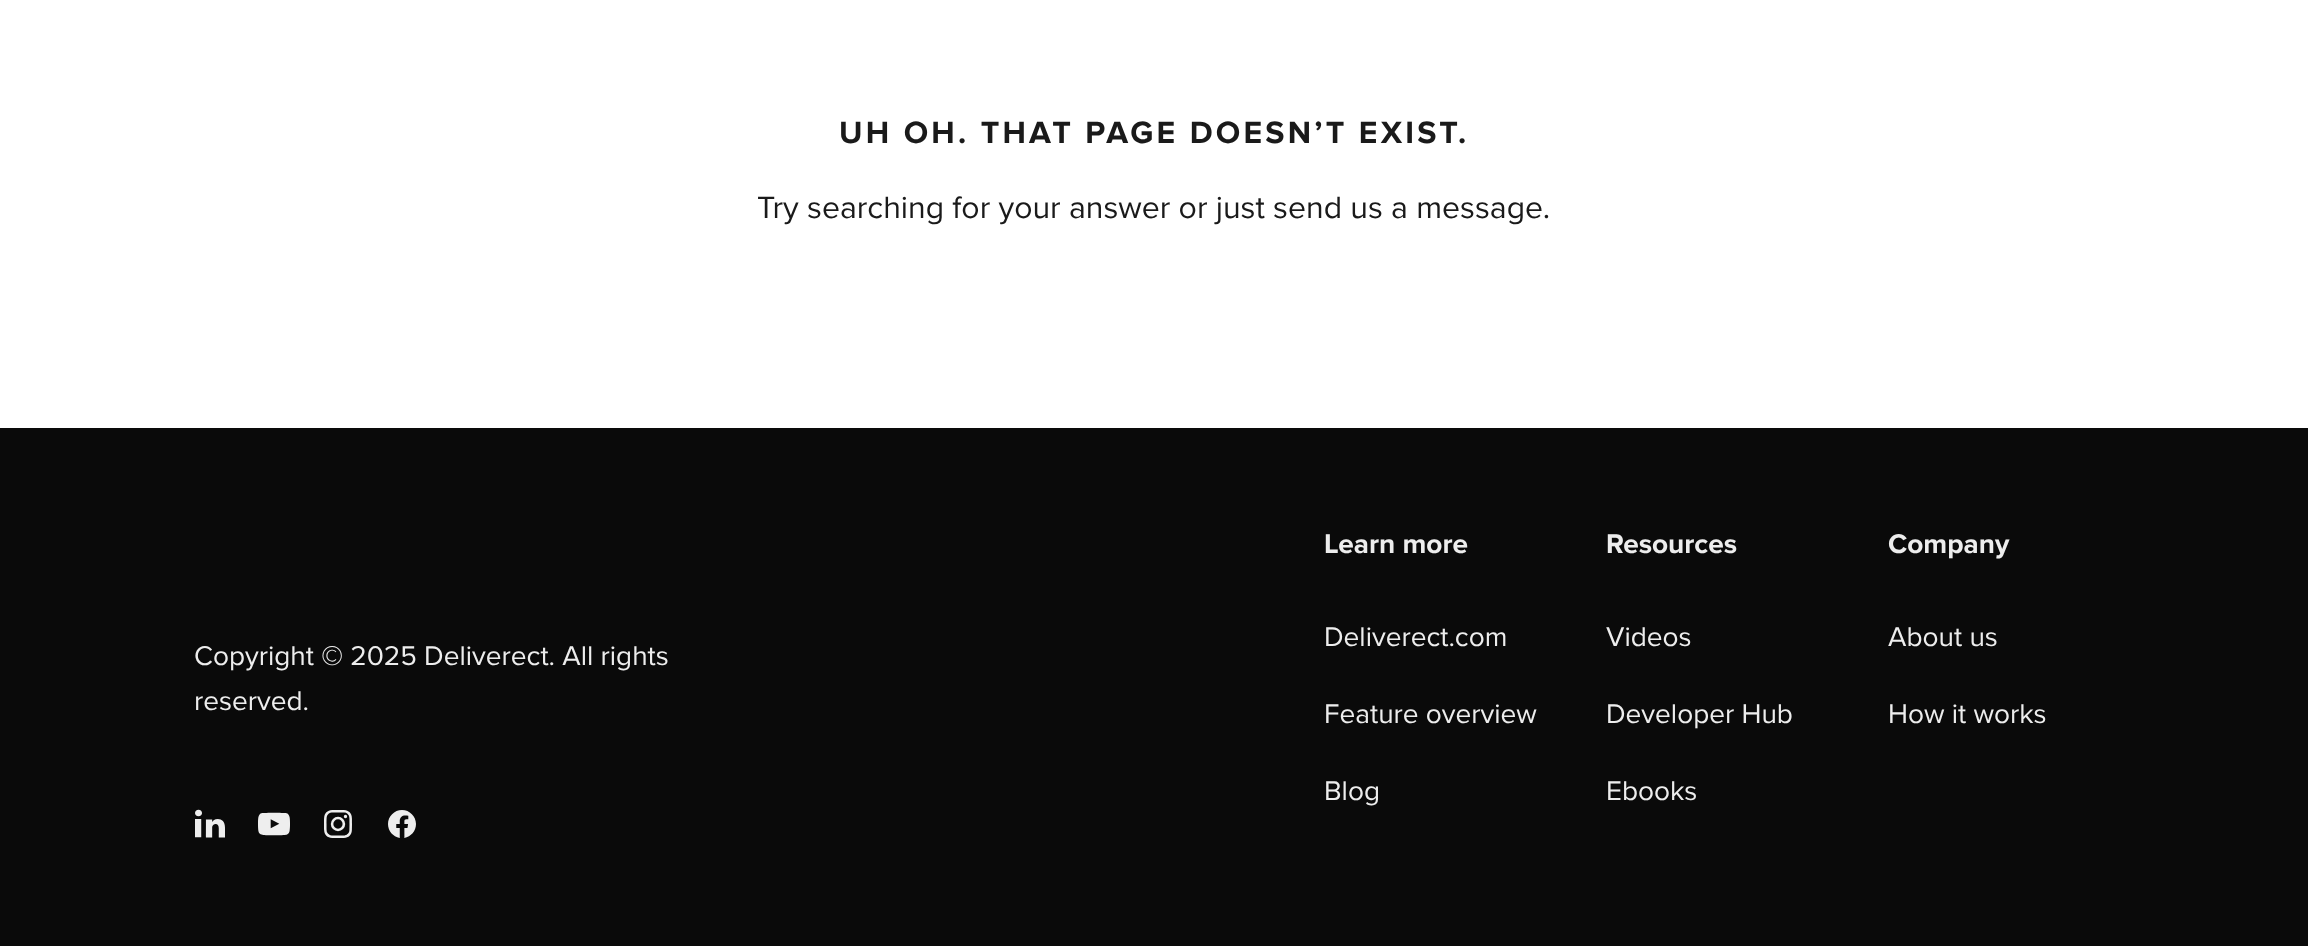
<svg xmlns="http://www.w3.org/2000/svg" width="2308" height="946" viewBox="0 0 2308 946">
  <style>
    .t1 { font: bold 32px Proxima Nova; letter-spacing: 3.2px; fill: #1a1a1a; }
    .t2 { font: 32px Proxima Nova; fill: #1a1a1a; }
    .t3 { font: 28px Proxima Nova; fill: #ededed; }
    .t4 { font: bold 28px Proxima Nova; fill: #ededed; }
  </style>
  <rect width="100%" height="100%" fill="#fff"/>
  <text x="839" y="143" class="t1">UH OH. THAT PAGE DOESN’T EXIST.</text>
  <text x="757" y="218" class="t2">Try searching for your answer or just send us a message.</text>
  <rect x="0" y="428" width="2308" height="518" fill="#0a0a0a"/>
  <text x="194" y="665" class="t3">Copyright © 2025 Deliverect. All rights</text>
  <text x="194" y="710" class="t3">reserved.</text>
  <image x="195" y="809" width="30" height="29" href="images/1.png"/>
  <image x="258" y="812" width="32" height="24" href="images/2.png"/>
  <image x="324" y="810" width="28" height="28" href="images/3.png"/>
  <image x="388" y="810" width="28" height="28" href="images/4.png"/>
  <text x="1324" y="553" class="t4">Learn more</text>
  <text x="1324" y="646" class="t3">Deliverect.com</text>
  <text x="1324" y="723" class="t3">Feature overview</text>
  <text x="1324" y="800" class="t3">Blog</text>
  <text x="1606" y="553" class="t4">Resources</text>
  <text x="1606" y="646" class="t3">Videos</text>
  <text x="1606" y="723" class="t3">Developer Hub</text>
  <text x="1606" y="800" class="t3">Ebooks</text>
  <text x="1888" y="553" class="t4">Company</text>
  <text x="1888" y="646" class="t3">About us</text>
  <text x="1888" y="723" class="t3">How it works</text>
</svg>
